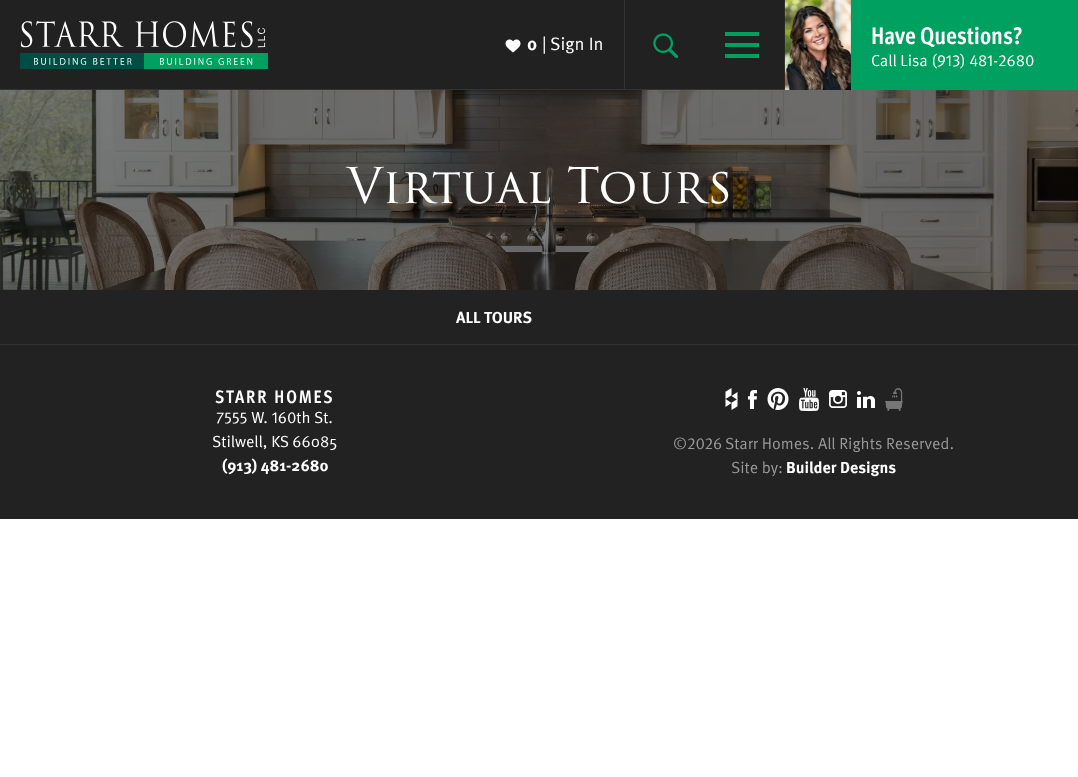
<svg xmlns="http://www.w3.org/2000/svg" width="1078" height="777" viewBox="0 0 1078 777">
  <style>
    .t1 { font: bold 18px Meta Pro; fill: #fff; }
    .t2 { font: 18px Meta Pro; fill: #fff; }
    .t3 { font: bold 24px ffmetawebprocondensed; fill: #fff; }
    .t4 { font: 16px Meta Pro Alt; fill: #fff; }
    .t5 { font: 48px 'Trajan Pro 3'; fill: #fff; }
    .t6 { font: bold 16px Meta Pro; fill: #fff; }
    .t7 { font: bold 18px ffmetawebprocondensed; letter-spacing: 2px; fill: #fff; }
    .t8 { font: 16px Meta Pro; fill: #fff; }
    .t9 { font: 16px Meta Pro; fill: #999; }
    .t10 { font: 16px Meta Pro Alt; fill: #999; }
  </style>
  <rect width="100%" height="100%" fill="#fff"/>
  <rect x="0" y="0" width="785" height="89" fill="#212121"/>
  <rect x="0" y="89" width="785" height="1" fill="#333"/>
  <image x="20" y="21" width="248" height="48" href="images/1.png"/>
  <rect x="624" y="0" width="1" height="90" fill="#333"/>
  <image x="505" y="39" width="16" height="14" href="images/2.png"/>
  <text x="527" y="50" class="t1">0</text>
  <text x="542" y="50" class="t2">|</text>
  <text x="550" y="50" class="t2">Sign In</text>
  <image x="653" y="33" width="26" height="26" href="images/3.png"/>
  <rect x="725" y="32" width="34" height="4" fill="#00a160"/>
  <rect x="725" y="43" width="34" height="4" fill="#00a160"/>
  <rect x="725" y="54" width="34" height="4" fill="#00a160"/>
  <rect x="850" y="0" width="228" height="90" fill="#00a160"/>
  <image x="784" y="0" width="67" height="90" href="images/4.png"/>
  <text x="871" y="44" class="t3">Have Questions?</text>
  <text x="871" y="66" class="t4">Call Lisa (913) 481-2680</text>
  <image x="0" y="90" width="1078" height="200" href="images/5.png"/>
  <text x="347" y="203" class="t5">Virtual Tours</text>
  <rect x="0" y="290" width="1078" height="54" fill="#222"/>
  <rect x="0" y="344" width="1078" height="1" fill="#333"/>
  <text x="456" y="323" class="t6">ALL TOURS</text>
  <rect x="0" y="345" width="1078" height="174" fill="#222"/>
  <text x="215" y="403" class="t7">STARR HOMES</text>
  <text x="216" y="423" class="t4">7555 W. 160th St.</text>
  <text x="212" y="447" class="t8">Stilwell, KS 66085</text>
  <text x="222" y="471" class="t6">(913) 481-2680</text>
  <image x="725" y="388" width="13" height="22" href="images/6.png"/>
  <image x="748" y="390" width="9" height="19" href="images/7.png"/>
  <image x="767" y="388" width="22" height="22" href="images/8.png"/>
  <image x="799" y="388" width="20" height="23" href="images/9.png"/>
  <image x="829" y="390" width="18" height="18" href="images/10.png"/>
  <image x="857" y="391" width="18" height="17" href="images/11.png"/>
  <image x="885" y="388" width="18" height="23" href="images/12.png"/>
  <text x="673" y="449" class="t9">©</text>
  <text x="687" y="449" class="t10">2026</text>
  <text x="725" y="449" class="t9">Starr Homes. All Rights Reserved.</text>
  <text x="731" y="473" class="t9">Site by:</text>
  <text x="786" y="473" class="t6">Builder Designs</text>
</svg>
